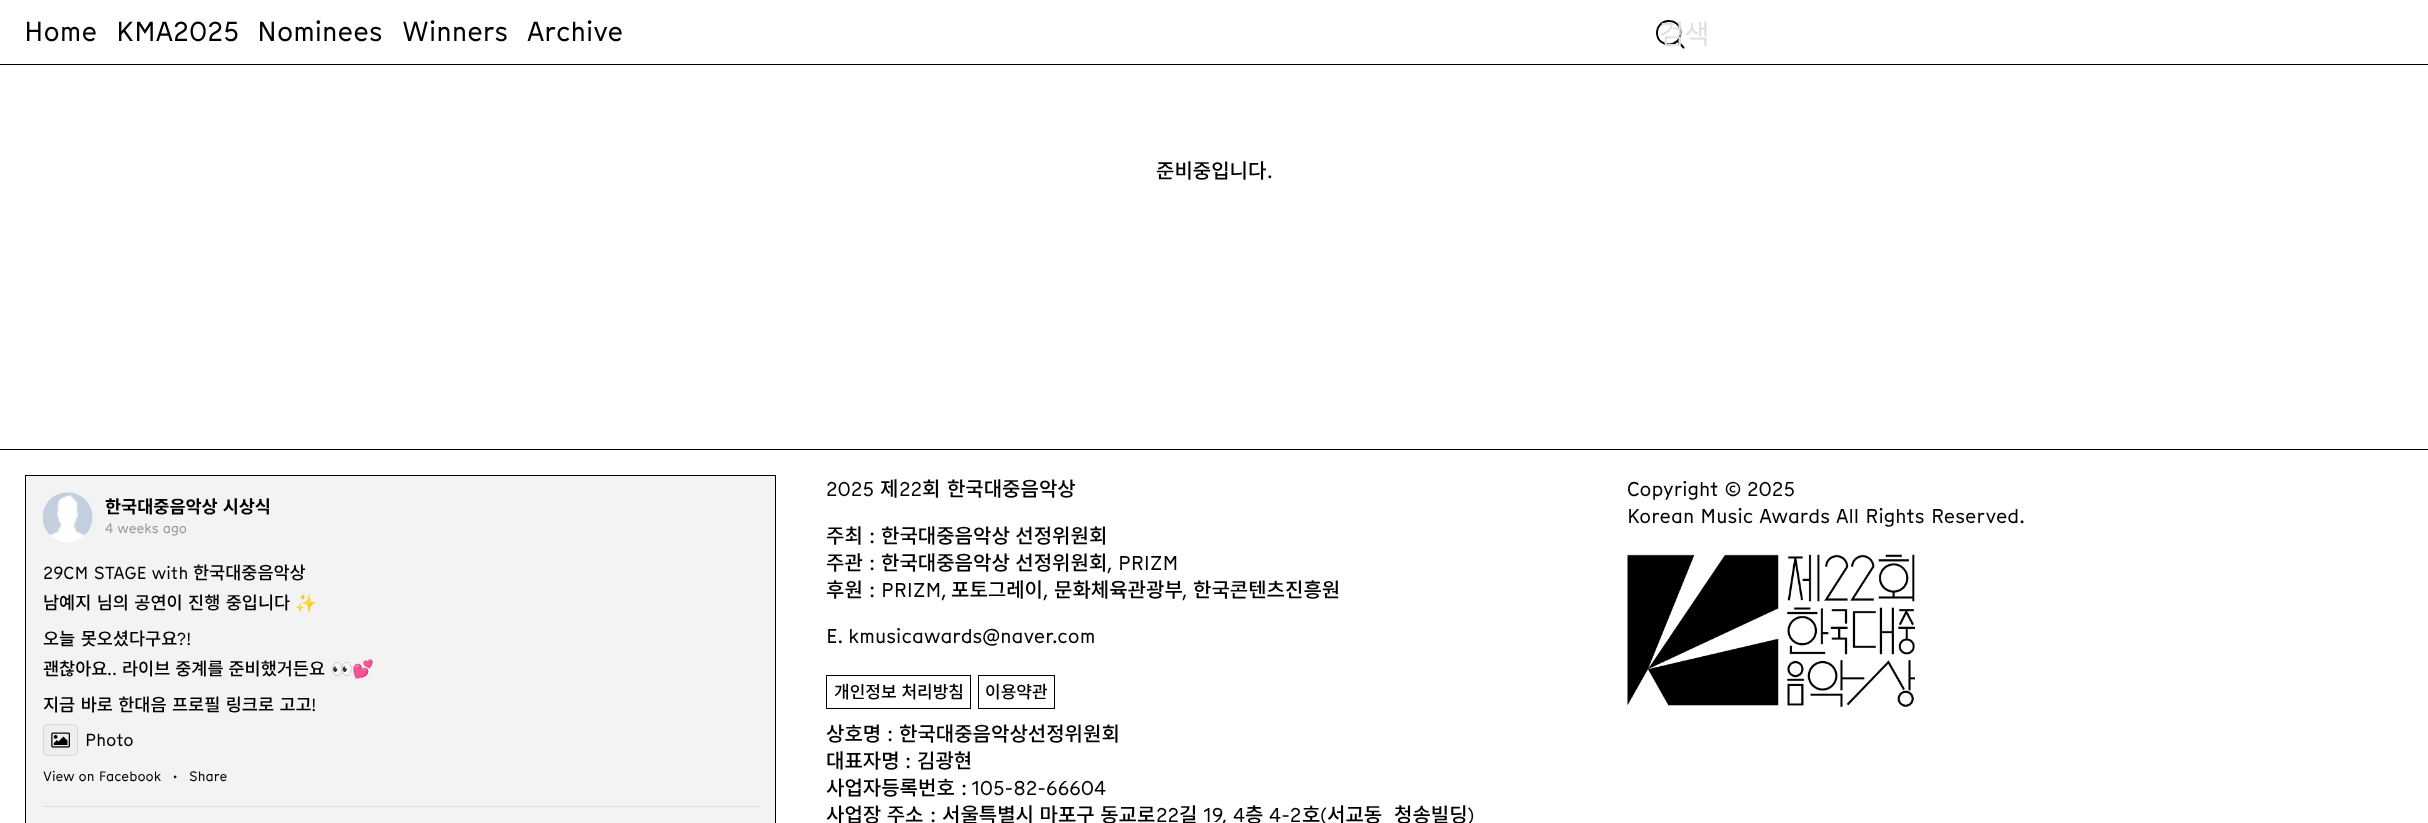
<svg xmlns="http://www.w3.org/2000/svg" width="2428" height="823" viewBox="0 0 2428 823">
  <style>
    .t1 { font: 27.5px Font; fill: #000; }
    .t2 { font: 27.5px Noto Sans KR; fill: #dfdfdf; }
    .t3 { font: 500 20px Noto Sans KR; fill: #000; }
    .t4 { font: 20px Font; fill: #000; }
    .t5 { font: bold 17.5px Noto Sans KR; fill: #000; }
    .t6 { font: 13.75px Font; fill: #9197a3; }
    .t7 { font: 17.5px Font; fill: #000; }
    .t8 { font: 500 17.5px Noto Sans KR; fill: #000; }
    .t9 { font: 17.5px Noto Color Emoji; fill: #000; }
    .t10 { font: 13.75px Font; fill: #000; }
    .t11 { font: 500 17px Noto Sans KR; fill: #000; }
  </style>
  <rect width="100%" height="100%" fill="#fff"/>
  <rect x="0" y="64" width="2428" height="1" fill="#000"/>
  <text x="24" y="41" class="t1">Home</text>
  <text x="116" y="41" class="t1">KMA2025</text>
  <text x="257" y="41" class="t1">Nominees</text>
  <text x="402" y="41" class="t1">Winners</text>
  <text x="527" y="41" class="t1">Archive</text>
  <path d="M1680.5 32.5C1680.5 48 1658 48.5 1657 33.5C1656.5 17.5 1680.5 16.5 1680.5 32.5ZM1683.5 47.5L1677.5 41" fill="none" stroke="#000" stroke-width="1.9" stroke-linecap="round" stroke-linejoin="round"/>
  <text x="1659" y="44" class="t2">검색</text>
  <text x="1156" y="178" class="t3">준비중입니다</text>
  <text x="1267" y="178" class="t4">.</text>
  <rect x="0" y="449" width="2428" height="1" fill="#000"/>
  <rect x="25.5" y="475.5" width="750" height="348" fill="#f3f3f3" stroke="#000"/>
  <rect x="43" y="806" width="716" height="1" fill="#ddd"/>
  <image x="42" y="492" width="51" height="50" href="images/1.png"/>
  <text x="105" y="513" word-spacing="1" class="t5">한국대중음악상 시상식</text>
  <text x="105" y="533" class="t6">4 weeks ago</text>
  <text x="43" y="579" class="t7">29CM STAGE with</text>
  <text x="193" y="579" class="t8">한국대중음악상</text>
  <text x="43" y="609" word-spacing="1.5" class="t8">남예지 님의 공연이 진행 중입니다</text>
  <text x="295" y="609" class="t9">✨</text>
  <text x="43" y="645" word-spacing="1.5" class="t8">오늘 못오셨다구요</text>
  <text x="177" y="645" class="t7">?!</text>
  <text x="43" y="675" class="t8">괜찮아요</text>
  <text x="107" y="675" class="t7">..</text>
  <text x="122" y="675" word-spacing="1" class="t8">라이브 중계를 준비했거든요</text>
  <text x="331" y="675" class="t9">👀💕</text>
  <text x="43" y="711" word-spacing="1.5" class="t8">지금 바로 한대음 프로필 링크로 고고</text>
  <text x="311" y="711" class="t7">!</text>
  <rect x="43.5" y="724.5" width="34" height="31" rx="3.5" fill="#eee" stroke="#d6d6d6"/>
  <image x="51" y="732" width="19" height="16" href="images/2.png"/>
  <text x="85" y="746" class="t7">Photo</text>
  <text x="43" y="781" class="t10">View on Facebook</text>
  <text x="171" y="781" class="t10">·</text>
  <text x="189" y="781" class="t10">Share</text>
  <text x="826" y="496" class="t4">2025</text>
  <text x="880" y="496" class="t3">제</text>
  <text x="899" y="496" class="t4">22</text>
  <text x="922" y="496" word-spacing="2" class="t3">회 한국대중음악상</text>
  <text x="826" y="543" class="t3">주최</text>
  <text x="869" y="543" class="t4">:</text>
  <text x="881" y="543" word-spacing="1" class="t3">한국대중음악상 선정위원회</text>
  <text x="826" y="570" class="t3">주관</text>
  <text x="869" y="570" class="t4">:</text>
  <text x="881" y="570" word-spacing="1" class="t3">한국대중음악상 선정위원회</text>
  <text x="1107" y="570" class="t4">,</text>
  <text x="1118" y="570" class="t4">PRIZM</text>
  <text x="826" y="597" class="t3">후원</text>
  <text x="869" y="597" class="t4">:</text>
  <text x="881" y="597" class="t4">PRIZM,</text>
  <text x="951" y="597" class="t3">포토그레이</text>
  <text x="1043" y="597" class="t4">,</text>
  <text x="1054" y="597" class="t3">문화체육관광부</text>
  <text x="1182" y="597" class="t4">,</text>
  <text x="1193" y="597" class="t3">한국콘텐츠진흥원</text>
  <text x="826" y="643" class="t4">E. kmusicawards@naver.com</text>
  <rect x="826.5" y="675.5" width="144" height="33" fill="none" stroke="#000"/>
  <text x="834" y="698" word-spacing="1" class="t11">개인정보 처리방침</text>
  <rect x="978.5" y="675.5" width="76" height="33" fill="none" stroke="#000"/>
  <text x="985" y="698" class="t11">이용약관</text>
  <text x="826" y="741" class="t3">상호명</text>
  <text x="887" y="741" class="t4">:</text>
  <text x="899" y="741" class="t3">한국대중음악상선정위원회</text>
  <text x="826" y="768" class="t3">대표자명</text>
  <text x="905" y="768" class="t4">:</text>
  <text x="917" y="768" class="t3">김광현</text>
  <text x="826" y="795" class="t3">사업자등록번호</text>
  <text x="961" y="795" class="t4">: 105-82-66604</text>
  <text x="826" y="822" word-spacing="1" class="t3">사업장 주소</text>
  <text x="930" y="822" class="t4">:</text>
  <text x="942" y="822" word-spacing="1" class="t3">서울특별시 마포구 동교로</text>
  <text x="1156" y="822" class="t4">22</text>
  <text x="1179" y="822" class="t3">길</text>
  <text x="1203" y="822" class="t4">19,</text>
  <text x="1233" y="822" class="t4">4</text>
  <text x="1245" y="822" class="t3">층</text>
  <text x="1269" y="822" class="t4">4-2</text>
  <text x="1302" y="822" class="t3">호</text>
  <text x="1320" y="822" class="t4">(</text>
  <text x="1327" y="822" class="t3">서교동</text>
  <text x="1394" y="822" class="t3">청송빌딩</text>
  <text x="1467" y="822" class="t4">)</text>
  <text x="1627" y="496" class="t4">Copyright © 2025</text>
  <text x="1627" y="523" class="t4">Korean Music Awards All Rights Reserved.</text>
  <image x="1627" y="554" width="288" height="154" href="images/3.png"/>
</svg>
